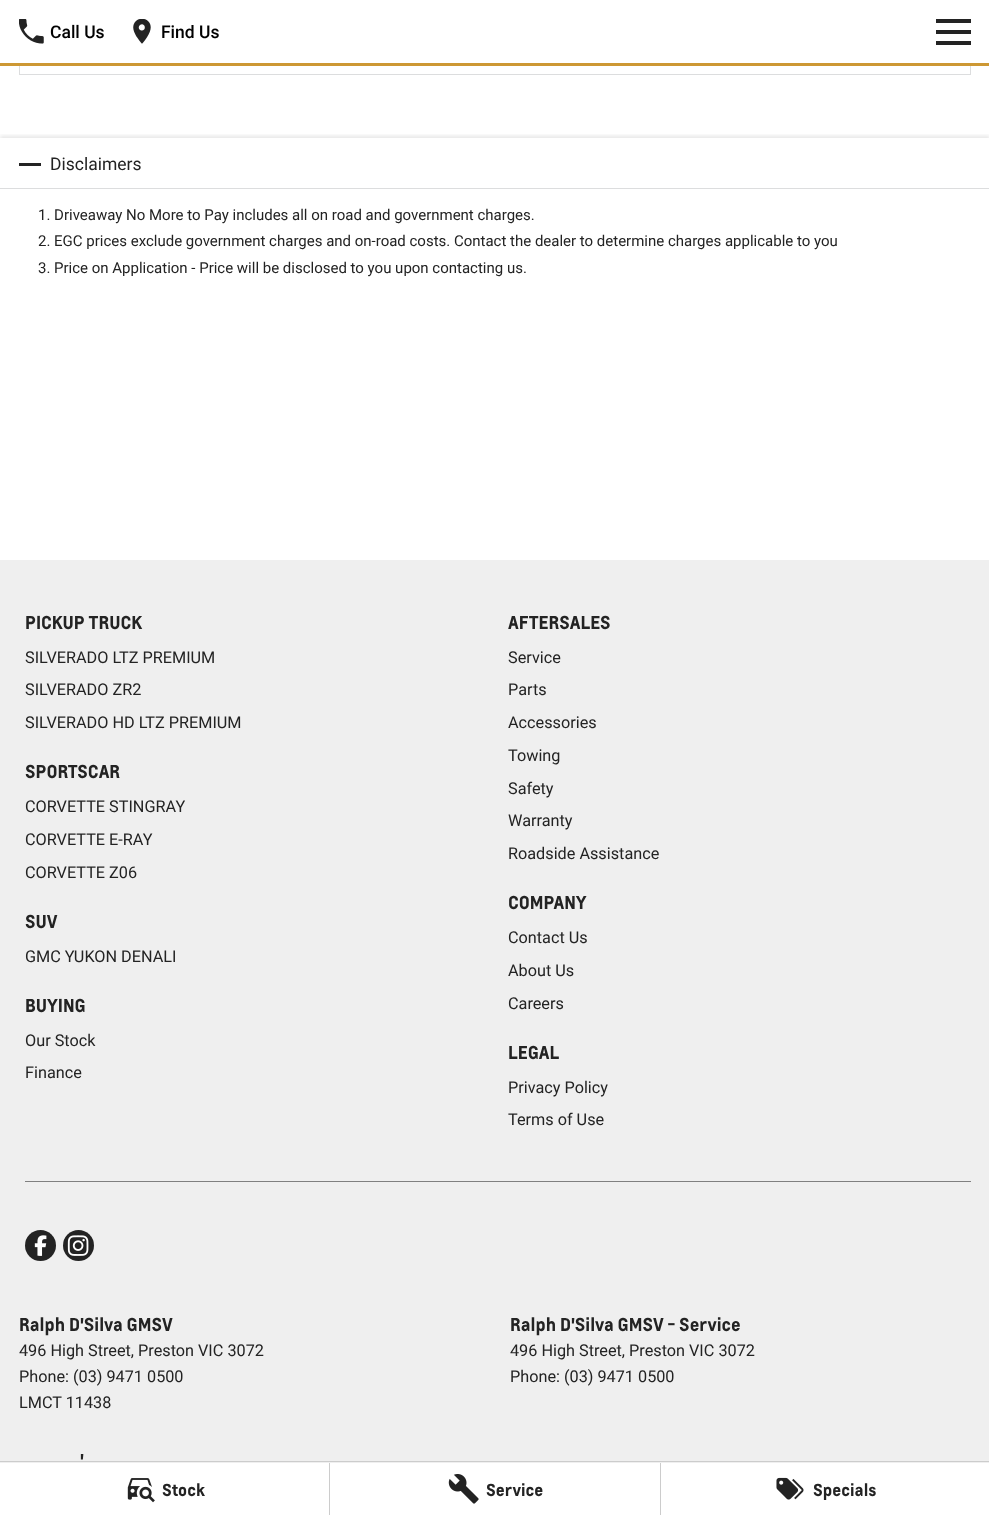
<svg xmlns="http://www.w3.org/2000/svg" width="989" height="1515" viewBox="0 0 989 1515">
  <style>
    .t1 { font: 500 17.5px Roboto; fill: #000; }
    .t2 { font: 17.5px Roboto; fill: #232323; }
    .t3 { font: 15px Roboto; fill: #232323; }
    .t4 { font: bold 17.5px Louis; fill: #232323; }
    .t5 { font: 16.25px Roboto; fill: #232323; }
    .t6 { font: bold 16.25px Louis; fill: #232323; }
  </style>
  <defs>
    <clipPath id="clip1"><rect x="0" y="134" width="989" height="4"/></clipPath>
  </defs>
  <rect width="100%" height="100%" fill="#fff"/>
  <rect x="19.5" y="-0.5" width="951" height="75" fill="none" stroke="#dcddde"/>
  <rect x="19" y="0" width="952" height="63" fill="#fff"/>
  <rect x="0" y="63" width="989" height="3" fill="#cd9834"/>
  <image x="19" y="19" width="25" height="25" href="images/1.png"/>
  <text x="50" y="38" class="t1">Call Us</text>
  <image x="133" y="19" width="18" height="25" href="images/2.png"/>
  <text x="161" y="38" class="t1">Find Us</text>
  <rect x="936" y="19" width="35" height="4" fill="#232323"/>
  <rect x="936" y="30" width="35" height="4" fill="#232323"/>
  <rect x="936" y="41" width="35" height="4" fill="#232323"/>
  <g clip-path="url(#clip1)">
    <rect x="0" y="136" width="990" height="159" fill="#0000001a" filter="blur(2px)"/>
  </g>
  <rect x="19" y="163" width="22" height="3" fill="#232323"/>
  <text x="50" y="170" class="t2">Disclaimers</text>
  <rect x="0" y="188" width="989" height="1" fill="#dcddde"/>
  <text x="38" y="220" class="t3">1. Driveaway No More to Pay includes all on road and government charges.</text>
  <text x="38" y="246" class="t3">2. EGC prices exclude government charges and on-road costs. Contact the dealer to determine charges applicable to you</text>
  <text x="38" y="273" class="t3">3. Price on Application - Price will be disclosed to you upon contacting us.</text>
  <rect x="0" y="560" width="989" height="903" fill="#efefef"/>
  <rect x="25" y="1181" width="946" height="1" fill="#808080"/>
  <text x="25" y="629" class="t4">PICKUP TRUCK</text>
  <text x="25" y="663" class="t5">SILVERADO LTZ PREMIUM</text>
  <text x="25" y="695" class="t5">SILVERADO ZR2</text>
  <text x="25" y="728" class="t5">SILVERADO HD LTZ PREMIUM</text>
  <text x="508" y="629" class="t4">AFTERSALES</text>
  <text x="508" y="663" class="t5">Service</text>
  <text x="508" y="695" class="t5">Parts</text>
  <text x="508" y="728" class="t5">Accessories</text>
  <text x="508" y="761" class="t5">Towing</text>
  <text x="508" y="794" class="t5">Safety</text>
  <text x="508" y="826" class="t5">Warranty</text>
  <text x="508" y="859" class="t5">Roadside Assistance</text>
  <text x="25" y="778" class="t4">SPORTSCAR</text>
  <text x="25" y="812" class="t5">CORVETTE STINGRAY</text>
  <text x="25" y="845" class="t5">CORVETTE E-RAY</text>
  <text x="25" y="878" class="t5">CORVETTE Z06</text>
  <text x="25" y="928" class="t4">SUV</text>
  <text x="25" y="962" class="t5">GMC YUKON DENALI</text>
  <text x="508" y="909" class="t4">COMPANY</text>
  <text x="508" y="943" class="t5">Contact Us</text>
  <text x="508" y="976" class="t5">About Us</text>
  <text x="508" y="1009" class="t5">Careers</text>
  <text x="25" y="1012" class="t4">BUYING</text>
  <text x="25" y="1046" class="t5">Our Stock</text>
  <text x="25" y="1078" class="t5">Finance</text>
  <text x="508" y="1059" class="t4">LEGAL</text>
  <text x="508" y="1093" class="t5">Privacy Policy</text>
  <text x="508" y="1125" class="t5">Terms of Use</text>
  <circle cx="40.5" cy="1245.5" r="15.5" fill="#232323"/>
  <image x="34" y="1235" width="13" height="21" href="images/3.png"/>
  <circle cx="78.5" cy="1245.5" r="15.5" fill="#232323"/>
  <image x="67" y="1235" width="22" height="21" href="images/4.png"/>
  <text x="19" y="1331" class="t4">Ralph D'Silva GMSV</text>
  <text x="19" y="1356" class="t5">496 High Street, Preston VIC 3072</text>
  <text x="19" y="1382" class="t5">Phone: (03) 9471 0500</text>
  <text x="19" y="1408" class="t5">LMCT 11438</text>
  <text x="510" y="1331" class="t4">Ralph D'Silva GMSV - Service</text>
  <text x="510" y="1356" class="t5">496 High Street, Preston VIC 3072</text>
  <text x="510" y="1382" class="t5">Phone: (03) 9471 0500</text>
  <text x="80" y="1467" class="t4">'</text>
  <rect x="0" y="1461" width="989" height="1" fill="#ccc"/>
  <rect x="329" y="1463" width="1" height="52" fill="#ccc"/>
  <image x="127" y="1478" width="28" height="25" href="images/5.png"/>
  <text x="162" y="1496" class="t6">Stock</text>
  <rect x="660" y="1463" width="1" height="52" fill="#ccc"/>
  <image x="448" y="1474" width="31" height="30" href="images/6.png"/>
  <text x="486" y="1496" class="t6">Service</text>
  <image x="776" y="1477" width="28" height="23" href="images/7.png"/>
  <text x="813" y="1496" class="t6">Specials</text>
</svg>
